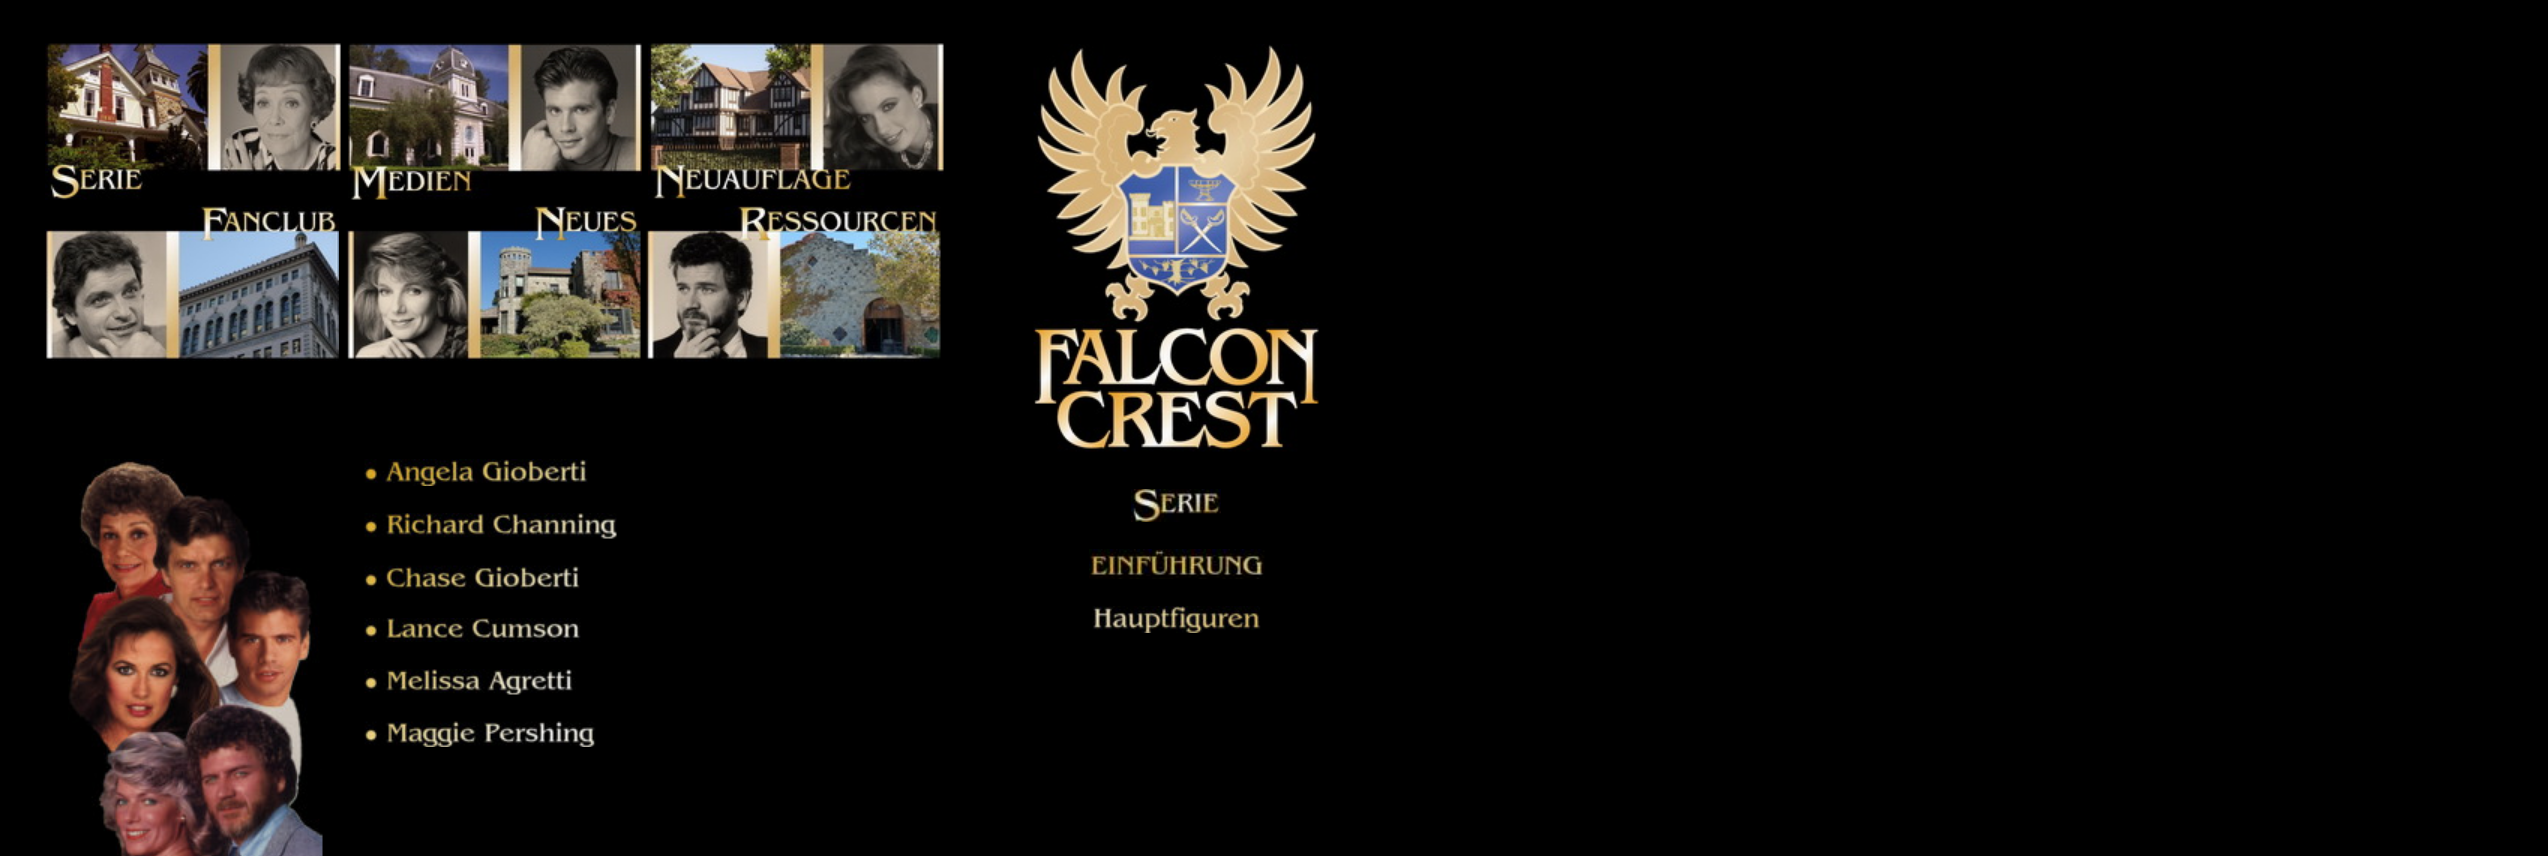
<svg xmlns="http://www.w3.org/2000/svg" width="2548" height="856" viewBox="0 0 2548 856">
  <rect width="100%" height="100%" fill="#000"/>
  <image x="45" y="43" width="296" height="157" href="images/1.png"/>
  <image x="348" y="43" width="294" height="157" href="images/2.png"/>
  <image x="648" y="43" width="296" height="157" href="images/3.png"/>
  <image x="45" y="205" width="294" height="156" href="images/4.png"/>
  <image x="346" y="205" width="295" height="156" href="images/5.png"/>
  <image x="646" y="205" width="295" height="157" href="images/6.png"/>
  <image x="68" y="459" width="255" height="397" href="images/7.png"/>
  <image x="364" y="459" width="224" height="27" href="images/8.png"/>
  <image x="364" y="513" width="253" height="26" href="images/9.png"/>
  <image x="364" y="565" width="216" height="25" href="images/10.png"/>
  <image x="364" y="618" width="217" height="24" href="images/11.png"/>
  <image x="364" y="669" width="212" height="26" href="images/12.png"/>
  <image x="364" y="721" width="232" height="26" href="images/13.png"/>
  <image x="1033" y="44" width="286" height="408" href="images/14.png"/>
  <image x="1131" y="489" width="90" height="33" href="images/15.png"/>
  <image x="1089" y="549" width="176" height="30" href="images/16.png"/>
  <image x="1092" y="606" width="169" height="27" href="images/17.png"/>
</svg>
